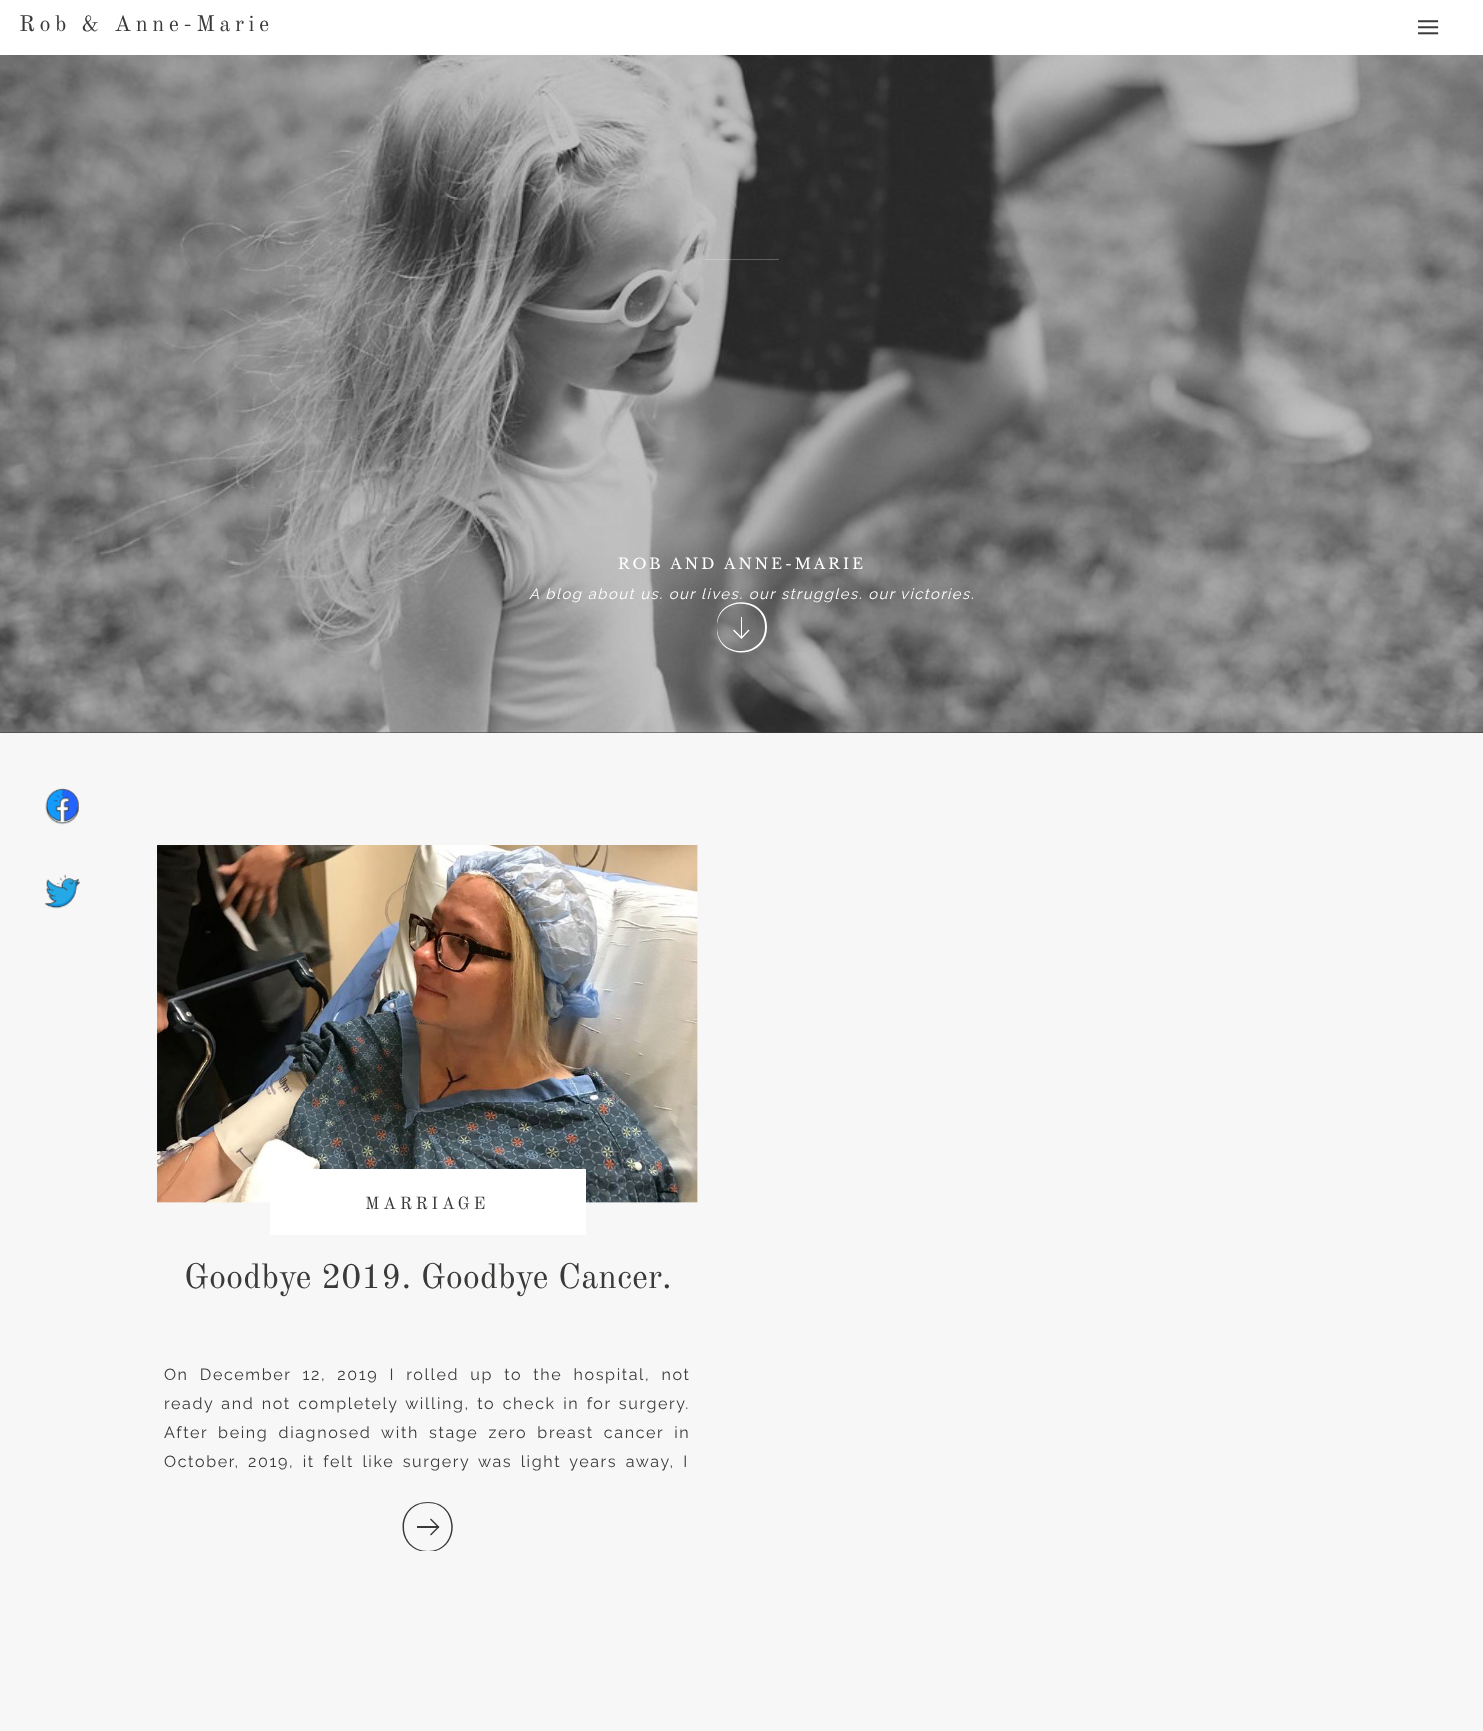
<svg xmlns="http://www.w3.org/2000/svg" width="1483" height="1731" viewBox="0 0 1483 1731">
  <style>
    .t1 { font: 22.25px Old Standard TT; letter-spacing: 4.5px; fill: #3a3a39; }
    .t2 { font: 14.85px Libre Baskerville; letter-spacing: 3px; fill: #fff; }
    .t3 { font: italic 100 14.85px Raleway; letter-spacing: 1.48px; fill: #fff; }
    .t4 { font: 17.25px Old Standard TT; letter-spacing: 3.5px; fill: #3a3a39; }
    .t5 { font: 34.6px Old Standard TT; fill: #3a3a39; }
    .t6 { font: 100 16.1px Raleway; letter-spacing: 1.6px; fill: #3a3a39; }
  </style>
  <defs>
    <clipPath id="clip1"><rect x="401" y="1501" width="53" height="50"/></clipPath>
  </defs>
  <rect width="100%" height="100%" fill="#fff"/>
  <text x="19" y="31" class="t1">Rob &amp; Anne-Marie</text>
  <image x="1418" y="20" width="21" height="15" href="images/1.png"/>
  <rect x="0" y="55" width="1483" height="678" fill="#3a3a39"/>
  <image x="0" y="55" width="1483" height="678" href="images/2.png"/>
  <path d="M733 630.5L734 629.5L741.5 637L748.5 629.5L749.5 630.5L741.5 639" fill="#fff"/>
  <rect x="741" y="617" width="1" height="21" fill="#fff"/>
  <path d="M717 621C722 594 767 596 767 627C767 659 722 661 717 633ZM765 627C765 659 717 659 717 627C717 596 765 596 765 627Z" fill="#fff" fill-rule="evenodd"/>
  <rect x="705" y="259" width="74" height="1" fill="#ffffff40"/>
  <text x="618" y="569" class="t2">ROB AND ANNE-MARIE</text>
  <text x="529" y="599" class="t3">A blog about us. our lives. our struggles. our victories.</text>
  <rect x="0" y="733" width="1483" height="998" fill="#f7f7f7"/>
  <image x="157" y="845" width="541" height="358" href="images/3.png"/>
  <rect x="270" y="1169" width="316" height="66" fill="#fff"/>
  <text x="365" y="1209" class="t4">MARRIAGE</text>
  <text x="184" y="1288" class="t5">Goodbye 2019. Goodbye Cancer.</text>
  <text x="164" y="1380" word-spacing="5.5" class="t6">On December 12, 2019 I rolled up to the hospital, not</text>
  <text x="164" y="1409" word-spacing="1.75" class="t6">ready and not completely willing, to check in for surgery.</text>
  <text x="164" y="1438" word-spacing="4.5" class="t6">After being diagnosed with stage zero breast cancer in</text>
  <text x="164" y="1467" word-spacing="2.75" class="t6">October, 2019, it felt like surgery was light years away, I</text>
  <path d="M431 1535.5L430 1534.5L437.5 1527L430 1519.5L431 1518.5L439.5 1527" fill="#3a3a39"/>
  <rect x="417" y="1526" width="22" height="2" fill="#3a3a39"/>
  <g clip-path="url(#clip1)">
    <path d="M428 1552C394 1552 394 1502 428 1502C461 1502 461 1552 428 1552ZM428 1503C396 1503 396 1551 428 1551C459 1551 459 1503 428 1503Z" fill="#3a3a39"/>
  </g>
  <image x="45" y="788" width="34" height="37" href="images/4.png"/>
  <image x="44" y="874" width="37" height="35" href="images/5.png"/>
</svg>
